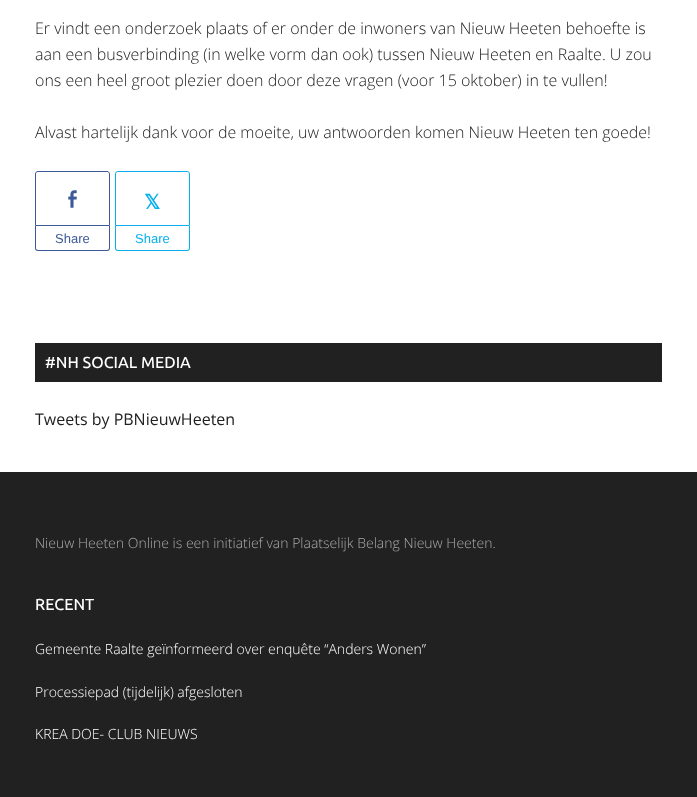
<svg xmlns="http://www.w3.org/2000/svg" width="697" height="797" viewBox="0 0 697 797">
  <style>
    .t1 { font: 300 16px Open Sans; fill: #212121; }
    .t2 { font: 13px Liberation Sans; fill: #3d5a98; }
    .t3 { font: bold 20px DejaVu Sans; fill: #09b0ed; }
    .t4 { font: 13px Liberation Sans; fill: #09b0ed; }
    .t5 { font: 500 16px Ubuntu; fill: #fff; }
    .t6 { font: 16px Open Sans; fill: #212121; }
    .t7 { font: 300 14px Open Sans; fill: #aaa; }
    .t8 { font: 300 14px Open Sans; fill: #fff; }
  </style>
  <rect width="100%" height="100%" fill="#fff"/>
  <text x="35" y="34" class="t1">Er vindt een onderzoek plaats of er onder de inwoners van Nieuw Heeten behoefte is</text>
  <text x="35" y="60" class="t1">aan een busverbinding (in welke vorm dan ook) tussen Nieuw Heeten en Raalte. U zou</text>
  <text x="35" y="86" class="t1">ons een heel groot plezier doen door deze vragen (voor 15 oktober) in te vullen!</text>
  <text x="35" y="138" class="t1">Alvast hartelijk dank voor de moeite, uw antwoorden komen Nieuw Heeten ten goede!</text>
  <path d="M38 171.5H107C108.5 171.5 109.5 172.5 109.5 174V225.5H35.5V174C35.5 172.5 36.5 171.5 38 171.5Z" fill="none" stroke="#3d5a98"/>
  <image x="68" y="190" width="9" height="18" href="images/1.png"/>
  <path d="M35 226H110V248C110 250 109 251 107 251H38C36 251 35 250 35 248ZM36 226H109V248C109 249 108 250 107 250H38C37 250 36 249 36 248Z" fill="#3d5a98" fill-rule="evenodd"/>
  <text x="55" y="243" class="t2">Share</text>
  <path d="M118 171.5H187C188.5 171.5 189.5 172.5 189.5 174V225.5H115.5V174C115.5 172.5 116.5 171.5 118 171.5Z" fill="none" stroke="#09b0ed"/>
  <text x="144" y="209" class="t3">𝕏</text>
  <path d="M115 226H190V248C190 250 189 251 187 251H118C116 251 115 250 115 248ZM116 226H189V248C189 249 188 250 187 250H118C117 250 116 249 116 248Z" fill="#09b0ed" fill-rule="evenodd"/>
  <text x="135" y="243" class="t4">Share</text>
  <rect x="35" y="343" width="627" height="39" fill="#212121"/>
  <text x="45" y="368" class="t5">#NH SOCIAL MEDIA</text>
  <text x="35" y="425" class="t6">Tweets by PBNieuwHeeten</text>
  <rect x="0" y="472" width="697" height="325" fill="#212121"/>
  <text x="35" y="548" class="t7">Nieuw Heeten Online is een initiatief van Plaatselijk Belang Nieuw Heeten.</text>
  <text x="35" y="610" class="t5">RECENT</text>
  <text x="35" y="654" class="t8">Gemeente Raalte geïnformeerd over enquête “Anders Wonen”</text>
  <text x="35" y="697" class="t8">Processiepad (tijdelijk) afgesloten</text>
  <text x="35" y="739" class="t8">KREA DOE- CLUB NIEUWS</text>
</svg>
